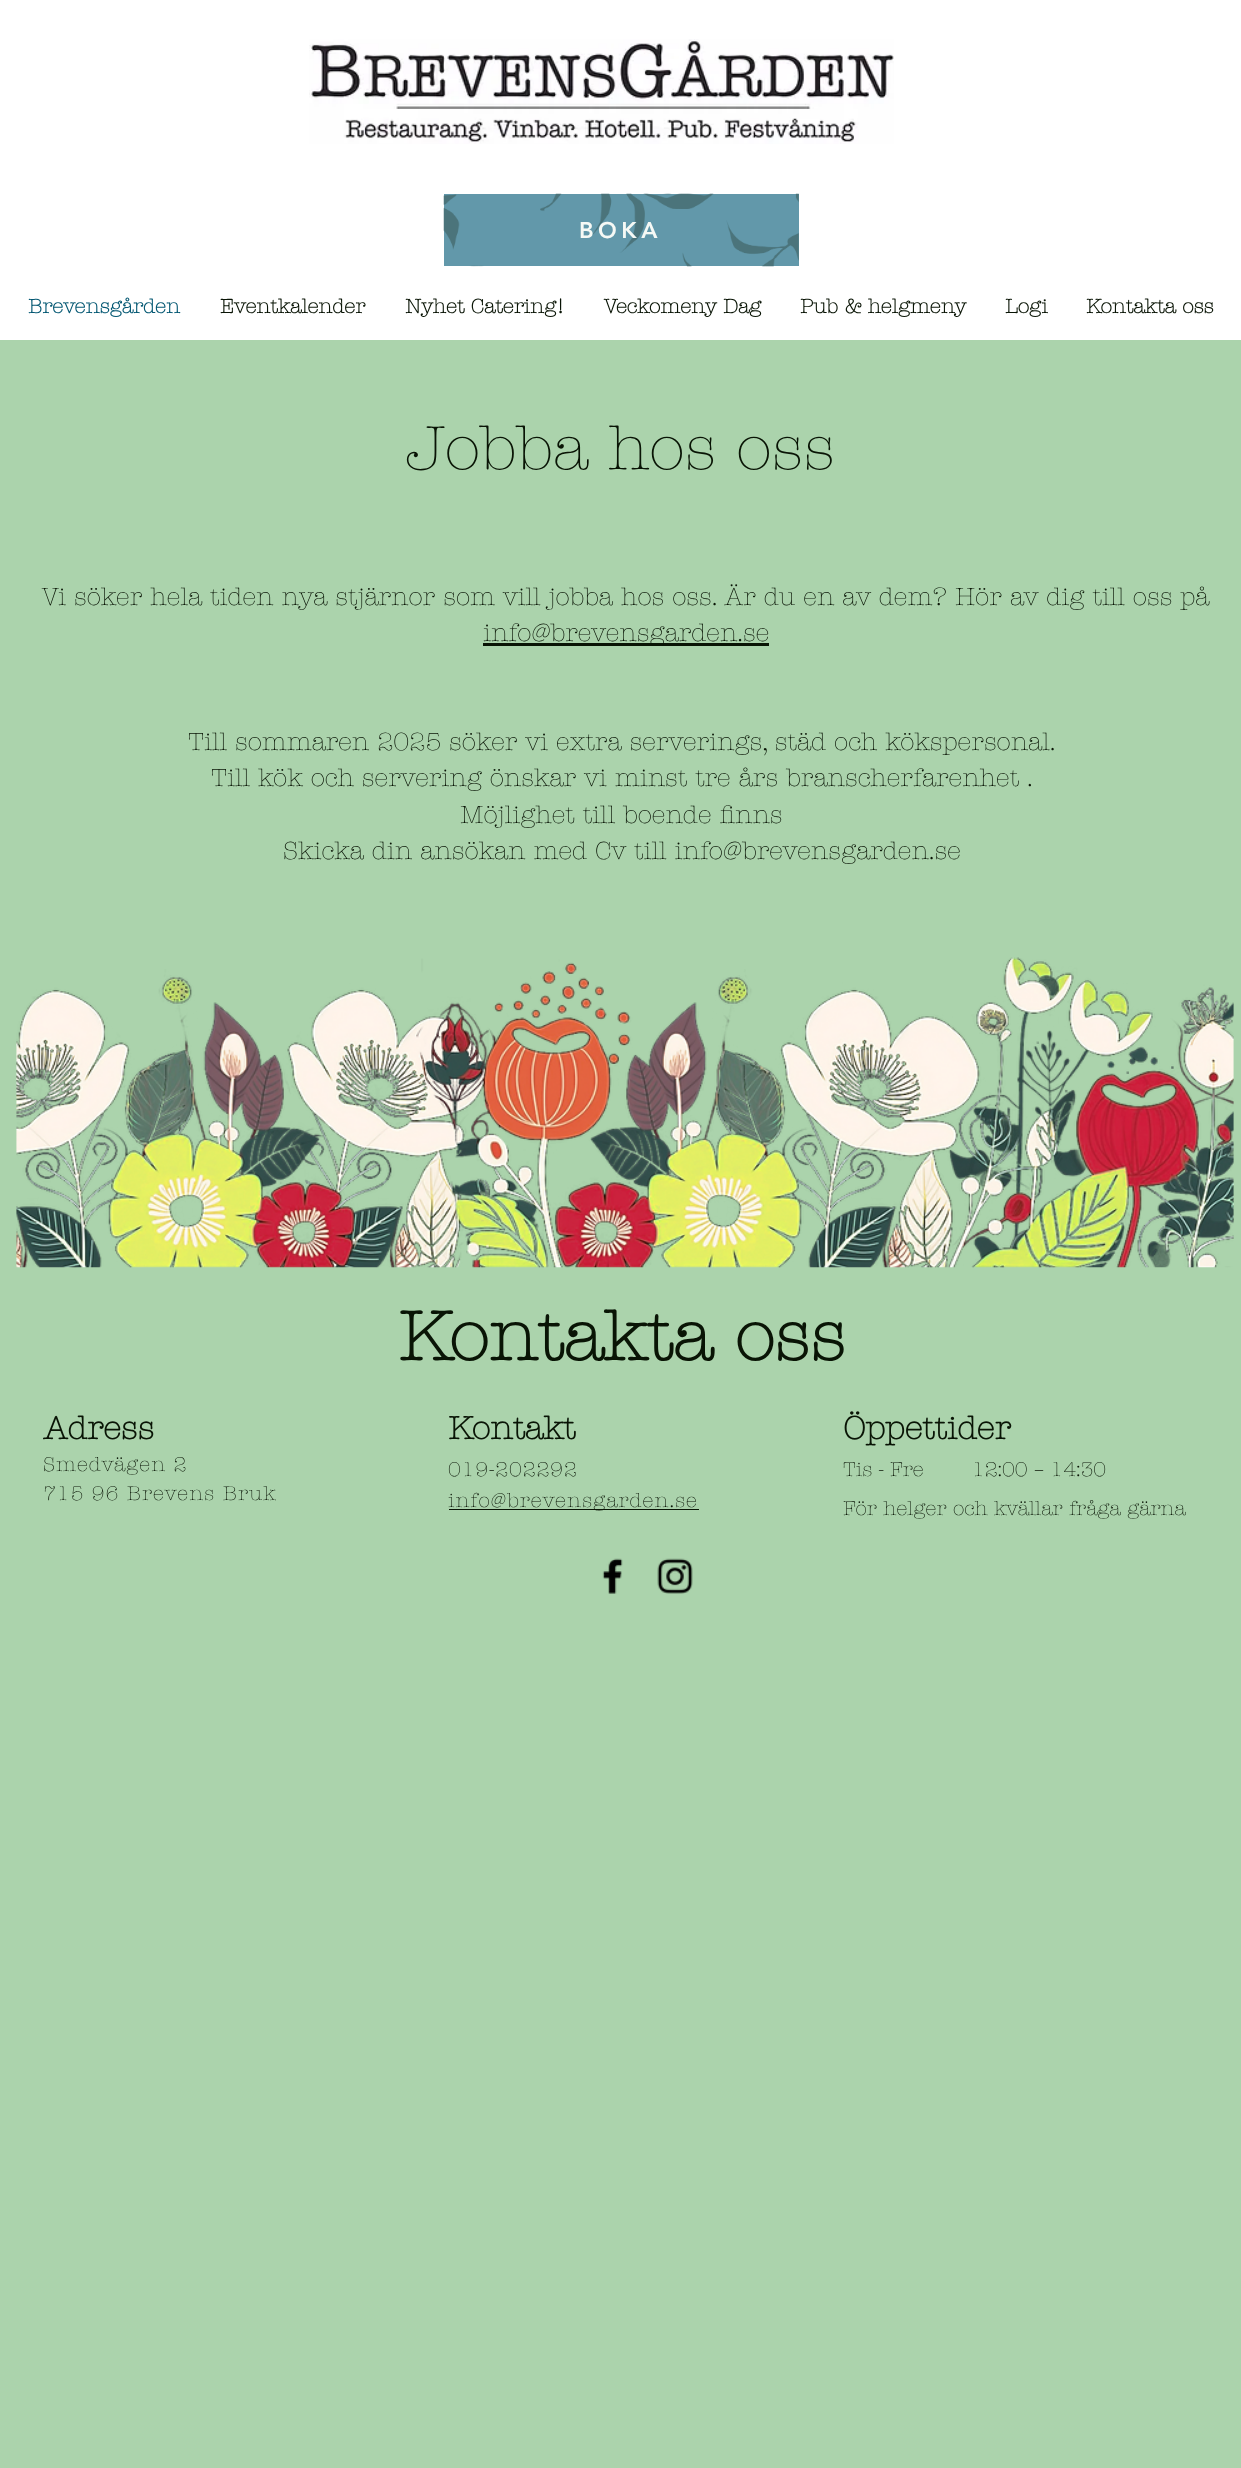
<svg xmlns="http://www.w3.org/2000/svg" width="1241" height="2468" viewBox="0 0 1241 2468">
  <style>
    .t1 { font: 900 22.5px 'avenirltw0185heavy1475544'; letter-spacing: 4.5px; fill: #f6f9f5; }
    .t2 { font: bold 20px 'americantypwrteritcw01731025'; fill: #035772; }
    .t3 { font: bold 20px 'americantypwrteritcw01731025'; fill: #091405; }
    .t4 { font: 300 62.5px 'americantypwrteritcw01731025'; fill: #091405; }
    .t5 { font: 300 25px 'americantypwrteritcw01731025'; fill: #091405; }
    .t6 { font: bold 70px 'americantypwrteritcw01731025'; fill: #091405; }
    .t7 { font: bold 32.5px 'americantypwrteritcw01731025'; fill: #091405; }
    .t8 { font: 300 20px 'americantypwrteritcw01731025'; letter-spacing: 1px; fill: #091405; }
    .t9 { font: 300 20px 'americantypwrteritcw01731025'; fill: #091405; }
  </style>
  <rect width="100%" height="100%" fill="#abd3ac"/>
  <rect x="0" y="0" width="1241" height="340" fill="#fff"/>
  <image x="309" y="39" width="585" height="105" href="images/1.png"/>
  <rect x="444" y="194" width="355" height="72" fill="#6298aa"/>
  <image x="443" y="193" width="356" height="74" href="images/2.png"/>
  <text x="579" y="238" class="t1">BOKA</text>
  <text x="28" y="313" class="t2">Brevensgården</text>
  <text x="220" y="313" class="t3">Eventkalender</text>
  <text x="405" y="313" class="t3">Nyhet Catering!</text>
  <text x="604" y="313" class="t3">Veckomeny Dag</text>
  <text x="800" y="313" class="t3">Pub &amp; helgmeny</text>
  <text x="1005" y="313" class="t3">Logi</text>
  <text x="1086" y="313" class="t3">Kontakta oss</text>
  <text x="406" y="469" class="t4">Jobba hos oss</text>
  <text x="42" y="605" class="t5">Vi söker hela tiden nya stjärnor som vill jobba hos oss. Är du en av dem? Hör av dig till oss på</text>
  <rect x="483" y="643" width="286" height="3" fill="#091405"/>
  <text x="483" y="641" class="t5">info@brevensgarden.se</text>
  <text x="188" y="750" class="t5">Till sommaren 2025 söker vi extra serverings, städ och kökspersonal.</text>
  <text x="211" y="786" class="t5">Till kök och servering önskar vi minst tre års branscherfarenhet .</text>
  <text x="460" y="823" class="t5">Möjlighet till boende finns</text>
  <text x="283" y="859" class="t5">Skicka din ansökan med Cv till info@brevensgarden.se</text>
  <image x="16" y="957" width="1218" height="311" href="images/3.png"/>
  <text x="398" y="1360" class="t6">Kontakta oss</text>
  <text x="43" y="1439" class="t7">Adress</text>
  <text x="448" y="1439" class="t7">Kontakt</text>
  <text x="843" y="1439" class="t7">Öppettider</text>
  <text x="43" y="1471" class="t8">Smedvägen 2</text>
  <text x="43" y="1500" class="t8">715 96 Brevens Bruk</text>
  <text x="448" y="1476" class="t8">019-202292</text>
  <text x="843" y="1476" class="t9">Tis - Fre</text>
  <text x="972" y="1476" class="t9">12:00 – 14:30</text>
  <rect x="449" y="1509" width="250" height="1" fill="#091405"/>
  <text x="448" y="1507" class="t8">info@brevensgarden.se</text>
  <text x="843" y="1515" class="t9">För helger och kvällar fråga gärna</text>
  <image x="602" y="1558" width="21" height="36" href="images/4.png"/>
  <image x="657" y="1558" width="36" height="36" href="images/5.png"/>
</svg>
